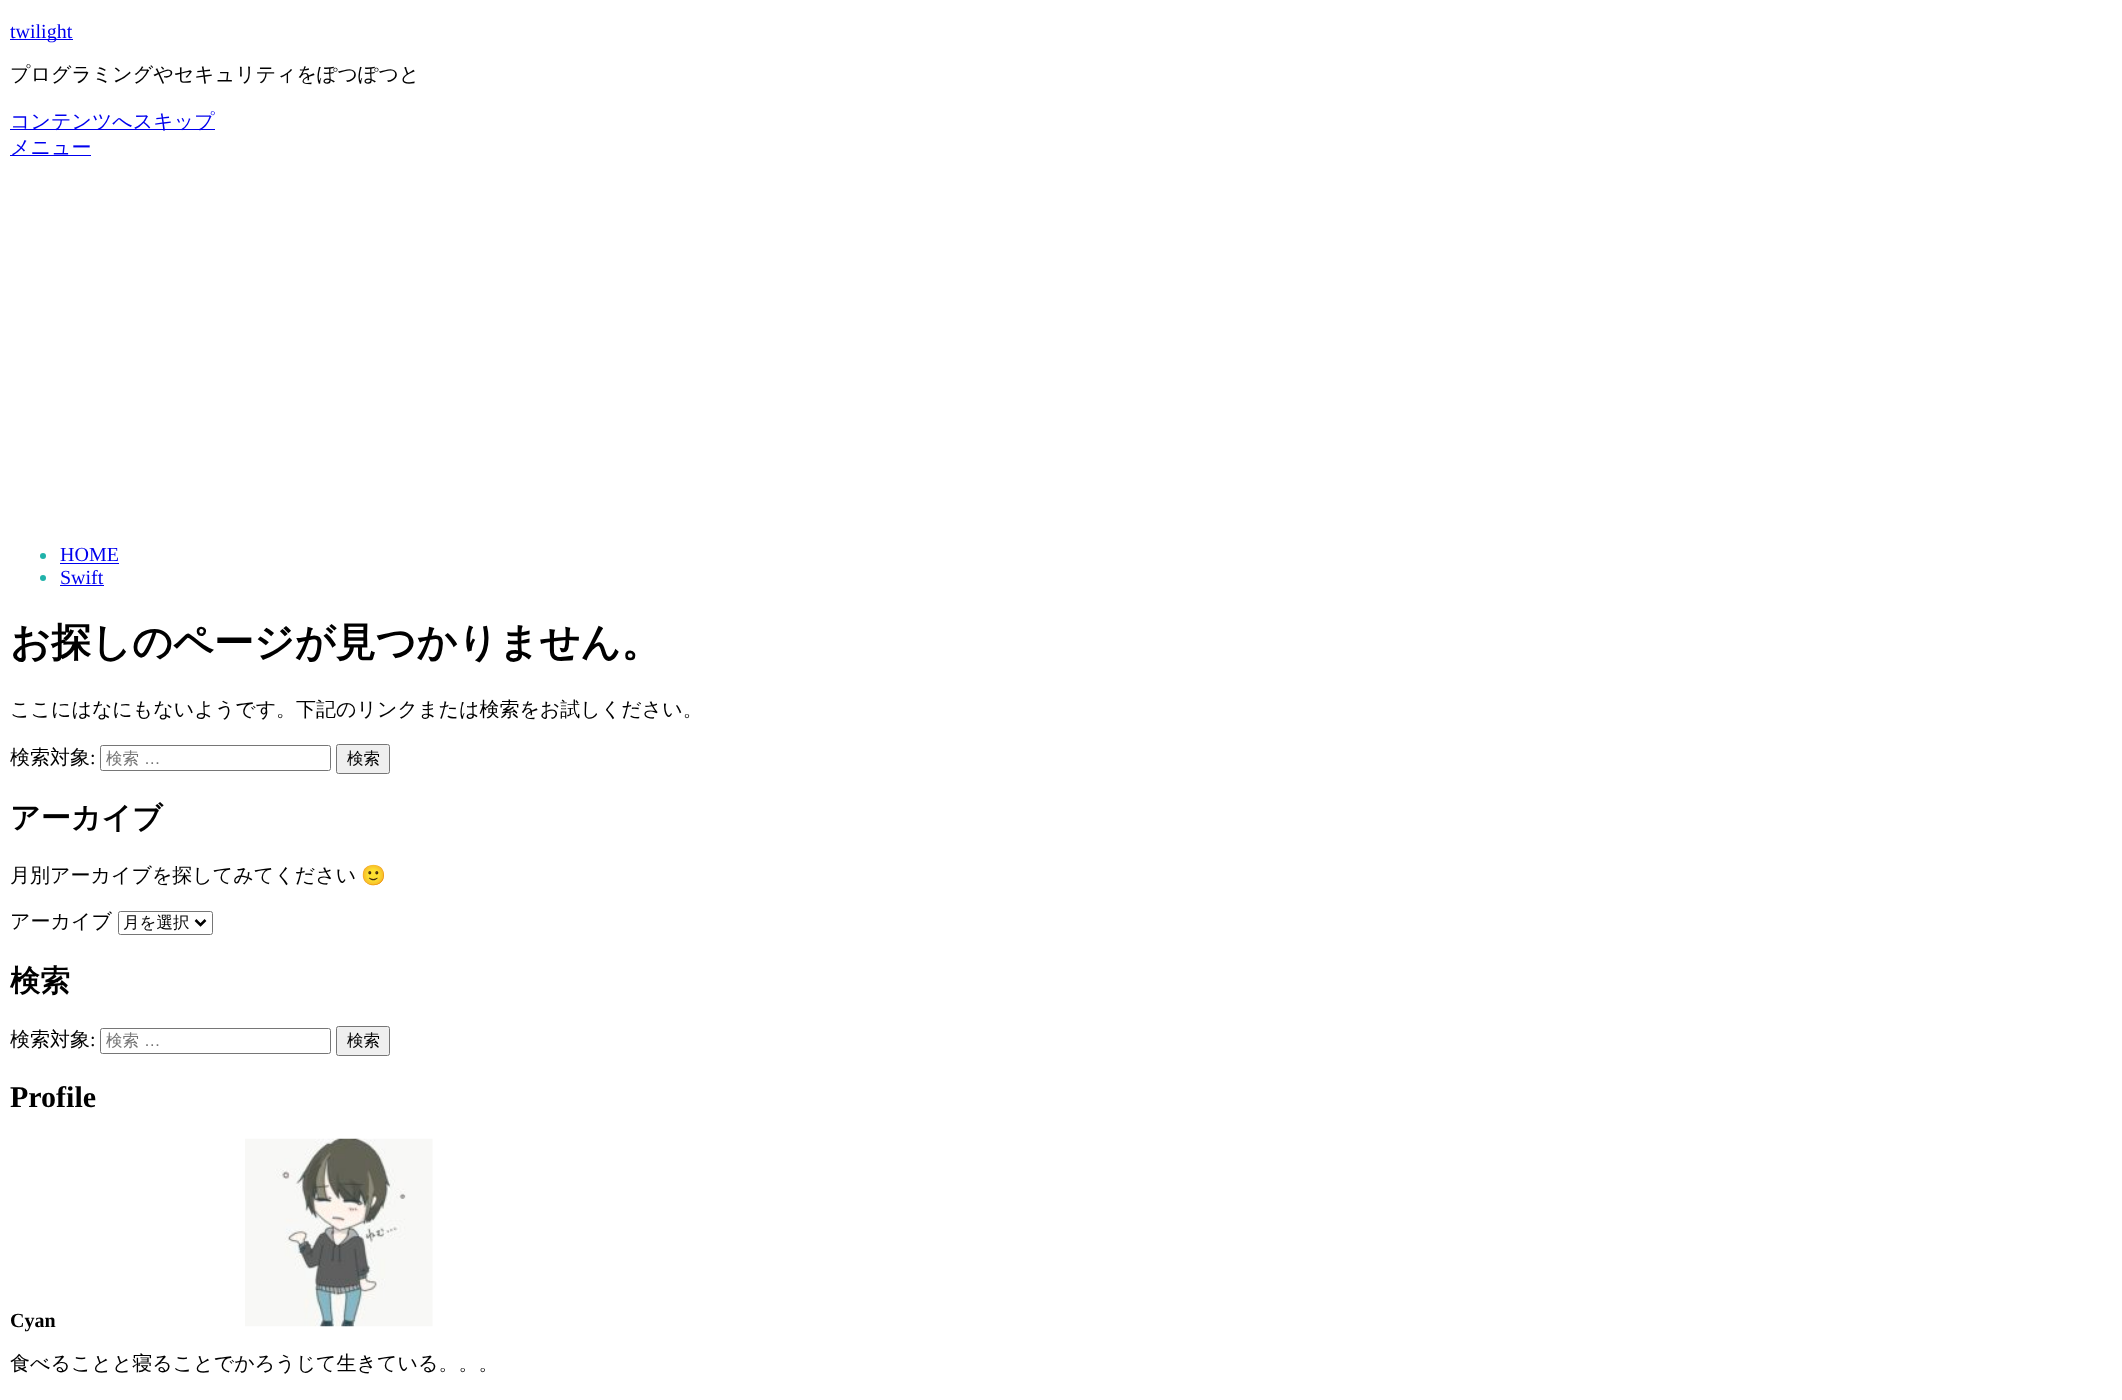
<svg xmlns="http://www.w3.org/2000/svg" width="2122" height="1400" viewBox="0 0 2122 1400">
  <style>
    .t1 { font: 20px Liberation Serif; fill: #00e; }
    .t2 { font: 500 20px WenQuanYi Zen Hei; fill: #000; }
    .t3 { font: 500 20px WenQuanYi Zen Hei; fill: #00e; }
    .t4 { font: bold 40px WenQuanYi Zen Hei; fill: #000; }
    .t5 { font: 20px Liberation Serif; fill: #000; }
    .t6 { font: 500 16.5px WenQuanYi Zen Hei; fill: #757575; }
    .t7 { font: 16.5px Liberation Sans; fill: #757575; }
    .t8 { font: 500 16.5px WenQuanYi Zen Hei; fill: #000; }
    .t9 { font: bold 30px WenQuanYi Zen Hei; fill: #000; }
    .t10 { font: 20px Noto Color Emoji; fill: #000; }
    .t11 { font: bold 30px Liberation Serif; fill: #000; }
    .t12 { font: bold 20px Liberation Serif; fill: #000; }
  </style>
  <rect width="100%" height="100%" fill="#fff"/>
  <rect x="10" y="39" width="63" height="1" fill="#00e"/>
  <text x="10" y="38" class="t1">twilight</text>
  <text x="10" y="81" class="t2">プログラミングやセキュリティをぽつぽつと</text>
  <rect x="10" y="129" width="205" height="1" fill="#00e"/>
  <text x="10" y="128" class="t3">コンテンツへスキップ</text>
  <rect x="10" y="155" width="81" height="1" fill="#00e"/>
  <text x="10" y="154" class="t3">メニュー</text>
  <circle cx="43" cy="556" r="3" fill="#20b2aa"/>
  <text x="60" y="561" class="t1">HOME</text>
  <rect x="60" y="563" width="59" height="1" fill="#00e"/>
  <circle cx="43" cy="578" r="3" fill="#20b2aa"/>
  <text x="60" y="584" class="t1">Swift</text>
  <rect x="60" y="585" width="44" height="1" fill="#00e"/>
  <text x="10" y="656" class="t4">お探しのページが見つかりません。</text>
  <text x="10" y="716" class="t2">ここにはなにもないようです。下記のリンクまたは検索をお試しください。</text>
  <text x="10" y="764" class="t2">検索対象</text>
  <text x="90" y="764" class="t5">:</text>
  <rect x="100.5" y="745.5" width="230" height="25" rx="2" fill="none" stroke="#767676"/>
  <text x="106" y="764" class="t6">検索</text>
  <text x="144" y="764" class="t7">…</text>
  <rect x="336.5" y="744.5" width="53" height="29" rx="2" fill="#efefef" stroke="#767676"/>
  <text x="347" y="764" class="t8">検索</text>
  <text x="10" y="828" class="t9">アーカイブ</text>
  <text x="10" y="882" class="t2">月別アーカイブを探してみてください</text>
  <text x="361" y="882" class="t10">🙂</text>
  <text x="10" y="928" class="t2">アーカイブ</text>
  <rect x="118.5" y="911.5" width="94" height="23" rx="2" fill="none" stroke="#767676"/>
  <path d="M195.5 920L200.5 925L205.5 920" fill="none" stroke="#000" stroke-width="2.5"/>
  <text x="123" y="928" class="t8">月を選択</text>
  <text x="10" y="991" class="t9">検索</text>
  <text x="10" y="1046" class="t2">検索対象</text>
  <text x="90" y="1046" class="t5">:</text>
  <rect x="100.5" y="1028.5" width="230" height="25" rx="2" fill="none" stroke="#767676"/>
  <text x="106" y="1046" class="t6">検索</text>
  <text x="144" y="1046" class="t7">…</text>
  <rect x="336.5" y="1026.5" width="53" height="29" rx="2" fill="#efefef" stroke="#767676"/>
  <text x="347" y="1046" class="t8">検索</text>
  <text x="10" y="1107" class="t11">Profile</text>
  <text x="10" y="1327" class="t12">Cyan</text>
  <image x="245" y="1138" width="188" height="189" href="images/1.png"/>
  <text x="10" y="1370" class="t2">食べることと寝ることでかろうじて生きている。。。</text>
</svg>
